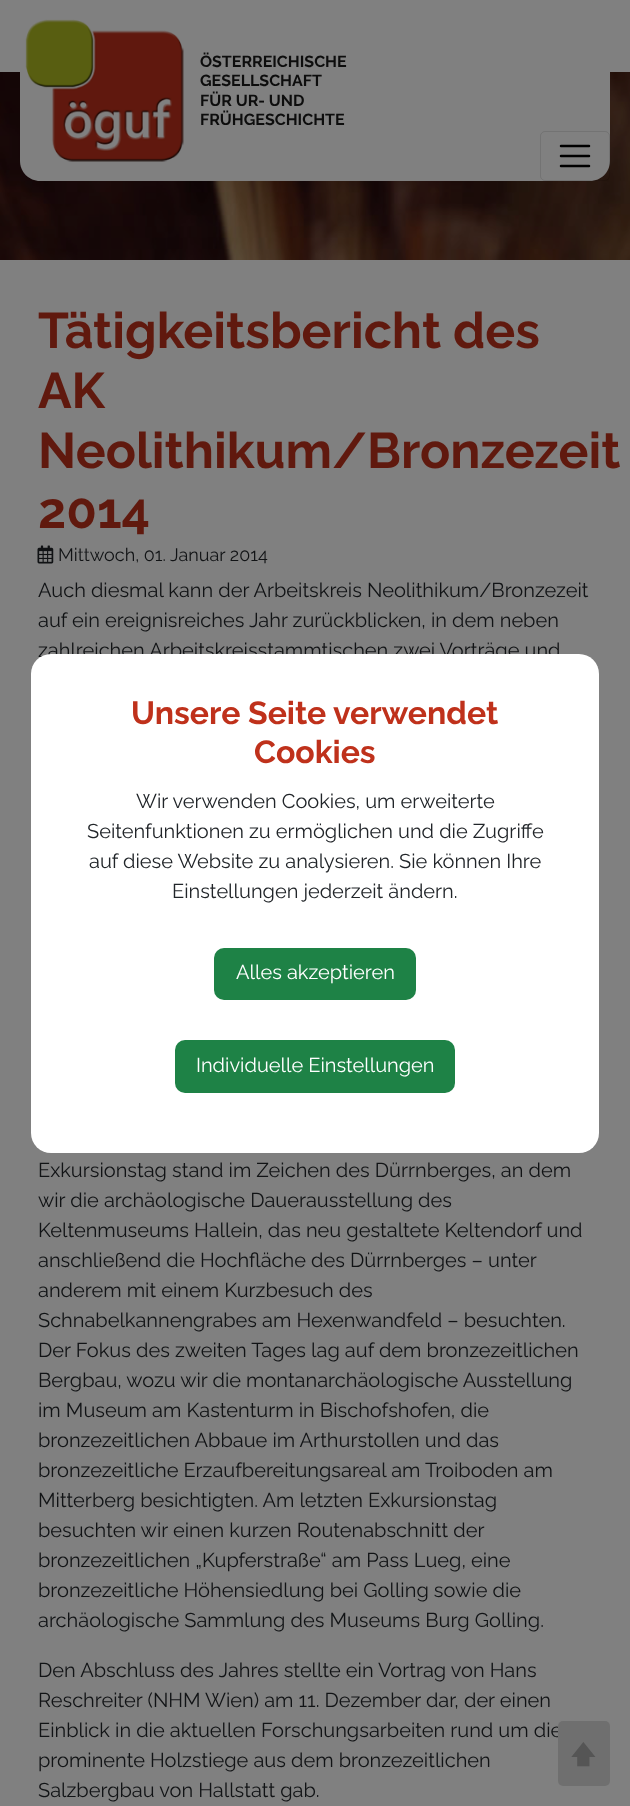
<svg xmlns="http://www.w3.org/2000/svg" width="630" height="1806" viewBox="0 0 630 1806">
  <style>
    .t1 { font: bold 16px Raleway; fill: #0d0d0d; }
    .t2 { font: bold 50px Raleway; fill: #60190e; }
    .t3 { font: 18px Raleway; fill: #111315; }
    .t4 { font: 20px Raleway; fill: #111315; }
    .t5 { font: bold 32px Raleway; fill: #bf311b; }
    .t6 { font: 20px Raleway; fill: #212529; }
    .t7 { font: 20px Raleway; fill: #fff; }
    .t8 { font: 26px 'Noto Sans Symbols 2'; fill: #555; }
  </style>
  <rect width="100%" height="100%" fill="#808080"/>
  <image x="0" y="72" width="630" height="188" href="images/2.png"/>
  <path d="M20 0H610V161C610 172 601 181 590 181H40C29 181 20 172 20 161Z" fill="#808080"/>
  <image x="25" y="19" width="159" height="143" href="images/1.png"/>
  <text x="200" y="67" class="t1">ÖSTERREICHISCHE</text>
  <text x="200" y="86" class="t1">GESELLSCHAFT</text>
  <text x="200" y="106" class="t1">FÜR UR- UND</text>
  <text x="200" y="125" class="t1">FRÜHGESCHICHTE</text>
  <rect x="540.5" y="131.5" width="69" height="49" rx="4.5" fill="none" stroke="#0000001a"/>
  <path d="M561 146H589M561 156H589M561 166H589" fill="none" stroke="#000" stroke-width="2.5" stroke-linecap="round"/>
  <text x="38" y="348" class="t2">Tätigkeitsbericht des</text>
  <text x="38" y="408" class="t2">AK</text>
  <text x="38" y="468" class="t2">Neolithikum/Bronzezeit</text>
  <text x="38" y="528" class="t2">2014</text>
  <image x="37" y="545" width="17" height="19" href="images/3.png"/>
  <text x="58" y="561" class="t3">Mittwoch, 01. Januar 2014</text>
  <text x="38" y="597" class="t4">Auch diesmal kann der Arbeitskreis Neolithikum/Bronzezeit</text>
  <text x="38" y="627" class="t4">auf ein ereignisreiches Jahr zurückblicken, in dem neben</text>
  <text x="38" y="657" class="t4">zahlreichen Arbeitskreisstammtischen zwei Vorträge und</text>
  <text x="38" y="1177" class="t4">Exkursionstag stand im Zeichen des Dürrnberges, an dem</text>
  <text x="38" y="1207" class="t4">wir die archäologische Dauerausstellung des</text>
  <text x="38" y="1237" class="t4">Keltenmuseums Hallein, das neu gestaltete Keltendorf und</text>
  <text x="38" y="1267" class="t4">anschließend die Hochfläche des Dürrnberges – unter</text>
  <text x="38" y="1297" class="t4">anderem mit einem Kurzbesuch des</text>
  <text x="38" y="1327" class="t4">Schnabelkannengrabes am Hexenwandfeld – besuchten.</text>
  <text x="38" y="1357" class="t4">Der Fokus des zweiten Tages lag auf dem bronzezeitlichen</text>
  <text x="38" y="1387" class="t4">Bergbau, wozu wir die montanarchäologische Ausstellung</text>
  <text x="38" y="1417" class="t4">im Museum am Kastenturm in Bischofshofen, die</text>
  <text x="38" y="1447" class="t4">bronzezeitlichen Abbaue im Arthurstollen und das</text>
  <text x="38" y="1477" class="t4">bronzezeitliche Erzaufbereitungsareal am Troiboden am</text>
  <text x="38" y="1507" class="t4">Mitterberg besichtigten. Am letzten Exkursionstag</text>
  <text x="38" y="1537" class="t4">besuchten wir einen kurzen Routenabschnitt der</text>
  <text x="38" y="1567" class="t4">bronzezeitlichen „Kupferstraße“ am Pass Lueg, eine</text>
  <text x="38" y="1597" class="t4">bronzezeitliche Höhensiedlung bei Golling sowie die</text>
  <text x="38" y="1627" class="t4">archäologische Sammlung des Museums Burg Golling.</text>
  <text x="38" y="1677" class="t4">Den Abschluss des Jahres stellte ein Vortrag von Hans</text>
  <text x="38" y="1707" class="t4">Reschreiter (NHM Wien) am 11. Dezember dar, der einen</text>
  <text x="38" y="1737" class="t4">Einblick in die aktuellen Forschungsarbeiten rund um die</text>
  <text x="38" y="1767" class="t4">prominente Holzstiege aus dem bronzezeitlichen</text>
  <text x="38" y="1797" class="t4">Salzbergbau von Hallstatt gab.</text>
  <rect x="31" y="654" width="568" height="499" rx="20" fill="#fff"/>
  <text x="131" y="724" class="t5">Unsere Seite verwendet</text>
  <text x="254" y="763" class="t5">Cookies</text>
  <text x="136" y="808" class="t6">Wir verwenden Cookies, um erweiterte</text>
  <text x="87" y="838" class="t6">Seitenfunktionen zu ermöglichen und die Zugriffe</text>
  <text x="89" y="868" class="t6">auf diese Website zu analysieren. Sie können Ihre</text>
  <text x="172" y="898" class="t6">Einstellungen jederzeit ändern.</text>
  <rect x="214" y="948" width="202" height="52" rx="10" fill="#1e8246"/>
  <text x="236" y="979" class="t7">Alles akzeptieren</text>
  <rect x="175" y="1040" width="280" height="53" rx="10" fill="#1e8246"/>
  <text x="196" y="1072" class="t7">Individuelle Einstellungen</text>
  <rect x="558" y="1721" width="52" height="65" rx="5" fill="#6f6f6f"/>
  <text x="570" y="1763" class="t8">🡅</text>
</svg>
